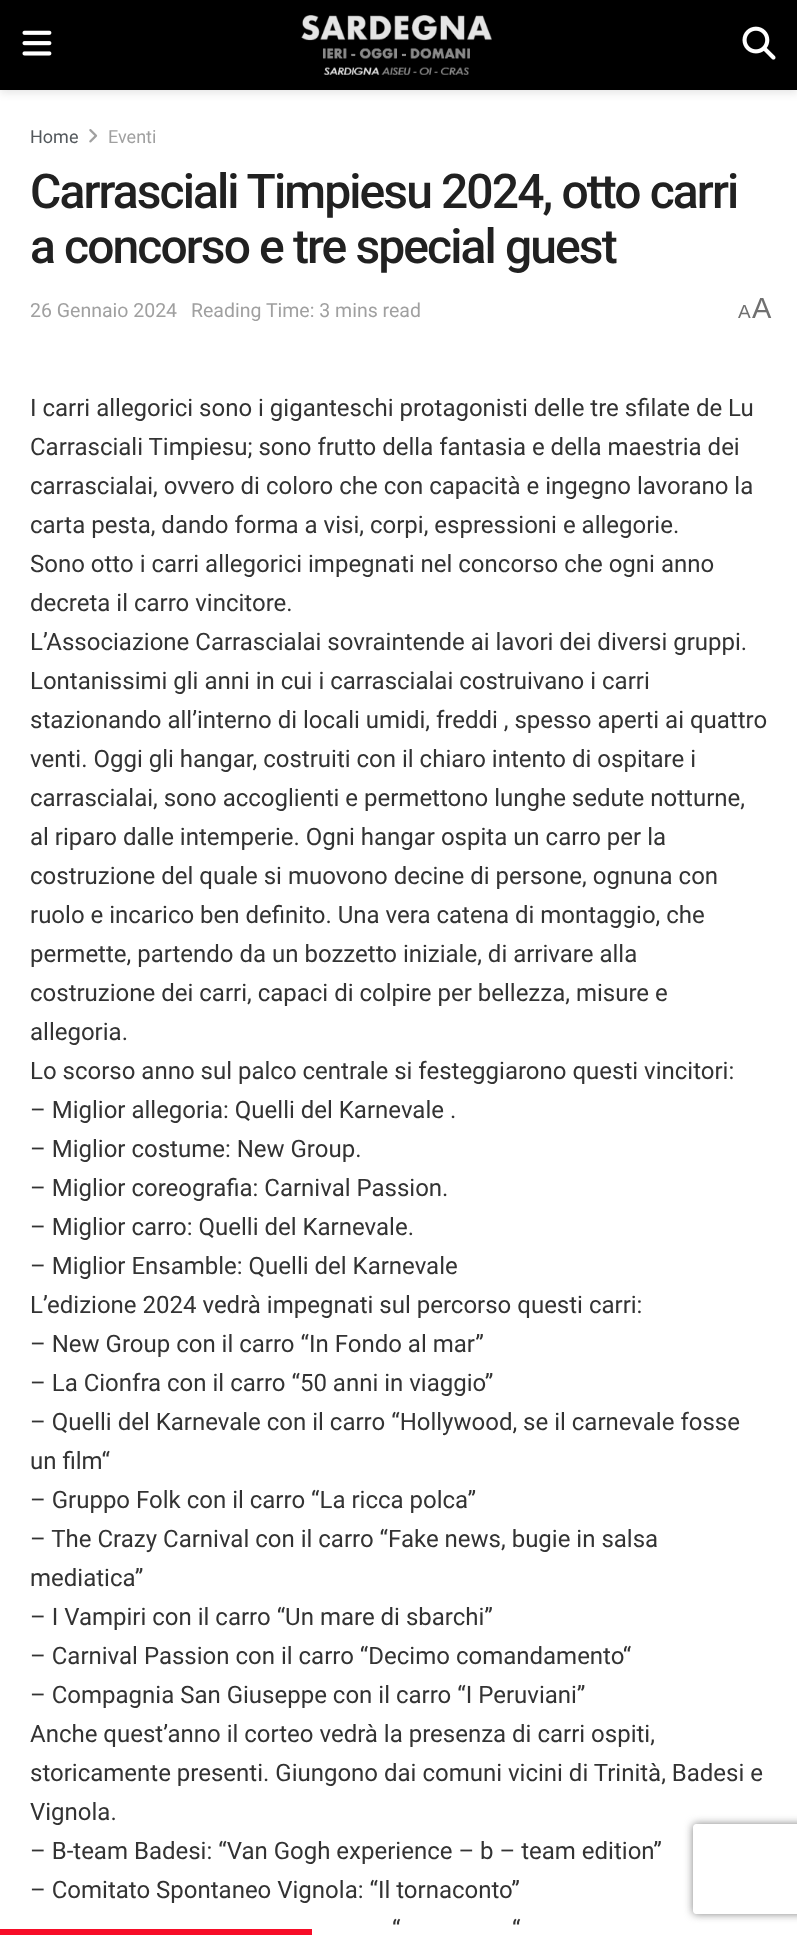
<svg xmlns="http://www.w3.org/2000/svg" width="797" height="1935" viewBox="0 0 797 1935">
  <style>
    .t1 { font: 18px Roboto; fill: #53585c; }
    .t2 { font: 18px Roboto; fill: #a0a0a0; }
    .t3 { font: 500 48px Roboto; letter-spacing: -1.9px; fill: #212121; }
    .t4 { font: 19.5px Roboto; fill: #a0a0a0; }
    .t5 { font: 19px Liberation Sans; fill: #707070; }
    .t6 { font: 29px Liberation Sans; fill: #707070; }
    .t7 { font: 24px Roboto; fill: #333; }
  </style>
  <defs>
    <clipPath id="clip1"><path d="M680 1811H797V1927H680ZM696 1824H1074C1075.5 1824 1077 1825.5 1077 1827V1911C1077 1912.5 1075.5 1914 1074 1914H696C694.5 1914 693 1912.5 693 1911V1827C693 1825.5 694.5 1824 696 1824Z" clip-rule="evenodd"/></clipPath>
  </defs>
  <rect width="100%" height="100%" fill="#fff"/>
  <rect x="0" y="3" width="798" height="90" fill="#0000001a" filter="blur(4.5px)"/>
  <rect x="0" y="0" width="797" height="90" fill="#000"/>
  <image x="22" y="30" width="30" height="26" href="images/1.png"/>
  <image x="301" y="15" width="191" height="60" href="images/2.png"/>
  <image x="742" y="26" width="34" height="34" href="images/3.png"/>
  <text x="30" y="143" class="t1">Home</text>
  <image x="89" y="129" width="9" height="14" href="images/4.png"/>
  <text x="108" y="143" class="t2">Eventi</text>
  <text x="30" y="208" class="t3">Carrasciali Timpiesu 2024, otto carri</text>
  <text x="30" y="263" class="t3">a concorso e tre special guest</text>
  <text x="30" y="317" class="t4">26 Gennaio 2024</text>
  <text x="191" y="317" class="t4">Reading Time: 3 mins read</text>
  <text x="738" y="318" class="t5">A</text>
  <text x="752" y="318" class="t6">A</text>
  <text x="30" y="416" class="t7">I carri allegorici sono i giganteschi protagonisti delle tre sfilate de Lu</text>
  <text x="30" y="455" class="t7">Carrasciali Timpiesu; sono frutto della fantasia e della maestria dei</text>
  <text x="30" y="494" class="t7">carrascialai, ovvero di coloro che con capacità e ingegno lavorano la</text>
  <text x="30" y="533" class="t7">carta pesta, dando forma a visi, corpi, espressioni e allegorie.</text>
  <text x="30" y="572" class="t7">Sono otto i carri allegorici impegnati nel concorso che ogni anno</text>
  <text x="30" y="611" class="t7">decreta il carro vincitore.</text>
  <text x="30" y="650" class="t7">L’Associazione Carrascialai sovraintende ai lavori dei diversi gruppi.</text>
  <text x="30" y="689" class="t7">Lontanissimi gli anni in cui i carrascialai costruivano i carri</text>
  <text x="30" y="728" class="t7">stazionando all’interno di locali umidi, freddi , spesso aperti ai quattro</text>
  <text x="30" y="767" class="t7">venti. Oggi gli hangar, costruiti con il chiaro intento di ospitare i</text>
  <text x="30" y="806" class="t7">carrascialai, sono accoglienti e permettono lunghe sedute notturne,</text>
  <text x="30" y="845" class="t7">al riparo dalle intemperie. Ogni hangar ospita un carro per la</text>
  <text x="30" y="884" class="t7">costruzione del quale si muovono decine di persone, ognuna con</text>
  <text x="30" y="923" class="t7">ruolo e incarico ben definito. Una vera catena di montaggio, che</text>
  <text x="30" y="962" class="t7">permette, partendo da un bozzetto iniziale, di arrivare alla</text>
  <text x="30" y="1001" class="t7">costruzione dei carri, capaci di colpire per bellezza, misure e</text>
  <text x="30" y="1040" class="t7">allegoria.</text>
  <text x="30" y="1079" class="t7">Lo scorso anno sul palco centrale si festeggiarono questi vincitori:</text>
  <text x="30" y="1118" class="t7">– Miglior allegoria: Quelli del Karnevale .</text>
  <text x="30" y="1157" class="t7">– Miglior costume: New Group.</text>
  <text x="30" y="1196" class="t7">– Miglior coreografia: Carnival Passion.</text>
  <text x="30" y="1235" class="t7">– Miglior carro: Quelli del Karnevale.</text>
  <text x="30" y="1274" class="t7">– Miglior Ensamble: Quelli del Karnevale</text>
  <text x="30" y="1313" class="t7">L’edizione 2024 vedrà impegnati sul percorso questi carri:</text>
  <text x="30" y="1352" class="t7">– New Group con il carro “In Fondo al mar”</text>
  <text x="30" y="1391" class="t7">– La Cionfra con il carro “50 anni in viaggio”</text>
  <text x="30" y="1430" class="t7">– Quelli del Karnevale con il carro “Hollywood, se il carnevale fosse</text>
  <text x="30" y="1469" class="t7">un film“</text>
  <text x="30" y="1508" class="t7">– Gruppo Folk con il carro “La ricca polca”</text>
  <text x="30" y="1547" class="t7">– The Crazy Carnival con il carro “Fake news, bugie in salsa</text>
  <text x="30" y="1586" class="t7">mediatica”</text>
  <text x="30" y="1625" class="t7">– I Vampiri con il carro “Un mare di sbarchi”</text>
  <text x="30" y="1664" class="t7">– Carnival Passion con il carro “Decimo comandamento“</text>
  <text x="30" y="1703" class="t7">– Compagnia San Giuseppe con il carro “I Peruviani”</text>
  <text x="30" y="1742" class="t7">Anche quest’anno il corteo vedrà la presenza di carri ospiti,</text>
  <text x="30" y="1781" class="t7">storicamente presenti. Giungono dai comuni vicini di Trinità, Badesi e</text>
  <text x="30" y="1820" class="t7">Vignola.</text>
  <text x="30" y="1859" class="t7">– B-team Badesi: “Van Gogh experience – b – team edition”</text>
  <text x="30" y="1898" class="t7">– Comitato Spontaneo Vignola: “Il tornaconto”</text>
  <text x="392" y="1937" class="t7">“</text>
  <text x="512" y="1937" class="t7">“</text>
  <g clip-path="url(#clip1)">
    <rect x="693" y="1824" width="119" height="90" rx="3" fill="#808080" filter="blur(4px)"/>
  </g>
  <rect x="0" y="1929" width="312" height="6" fill="#f70d28"/>
</svg>
